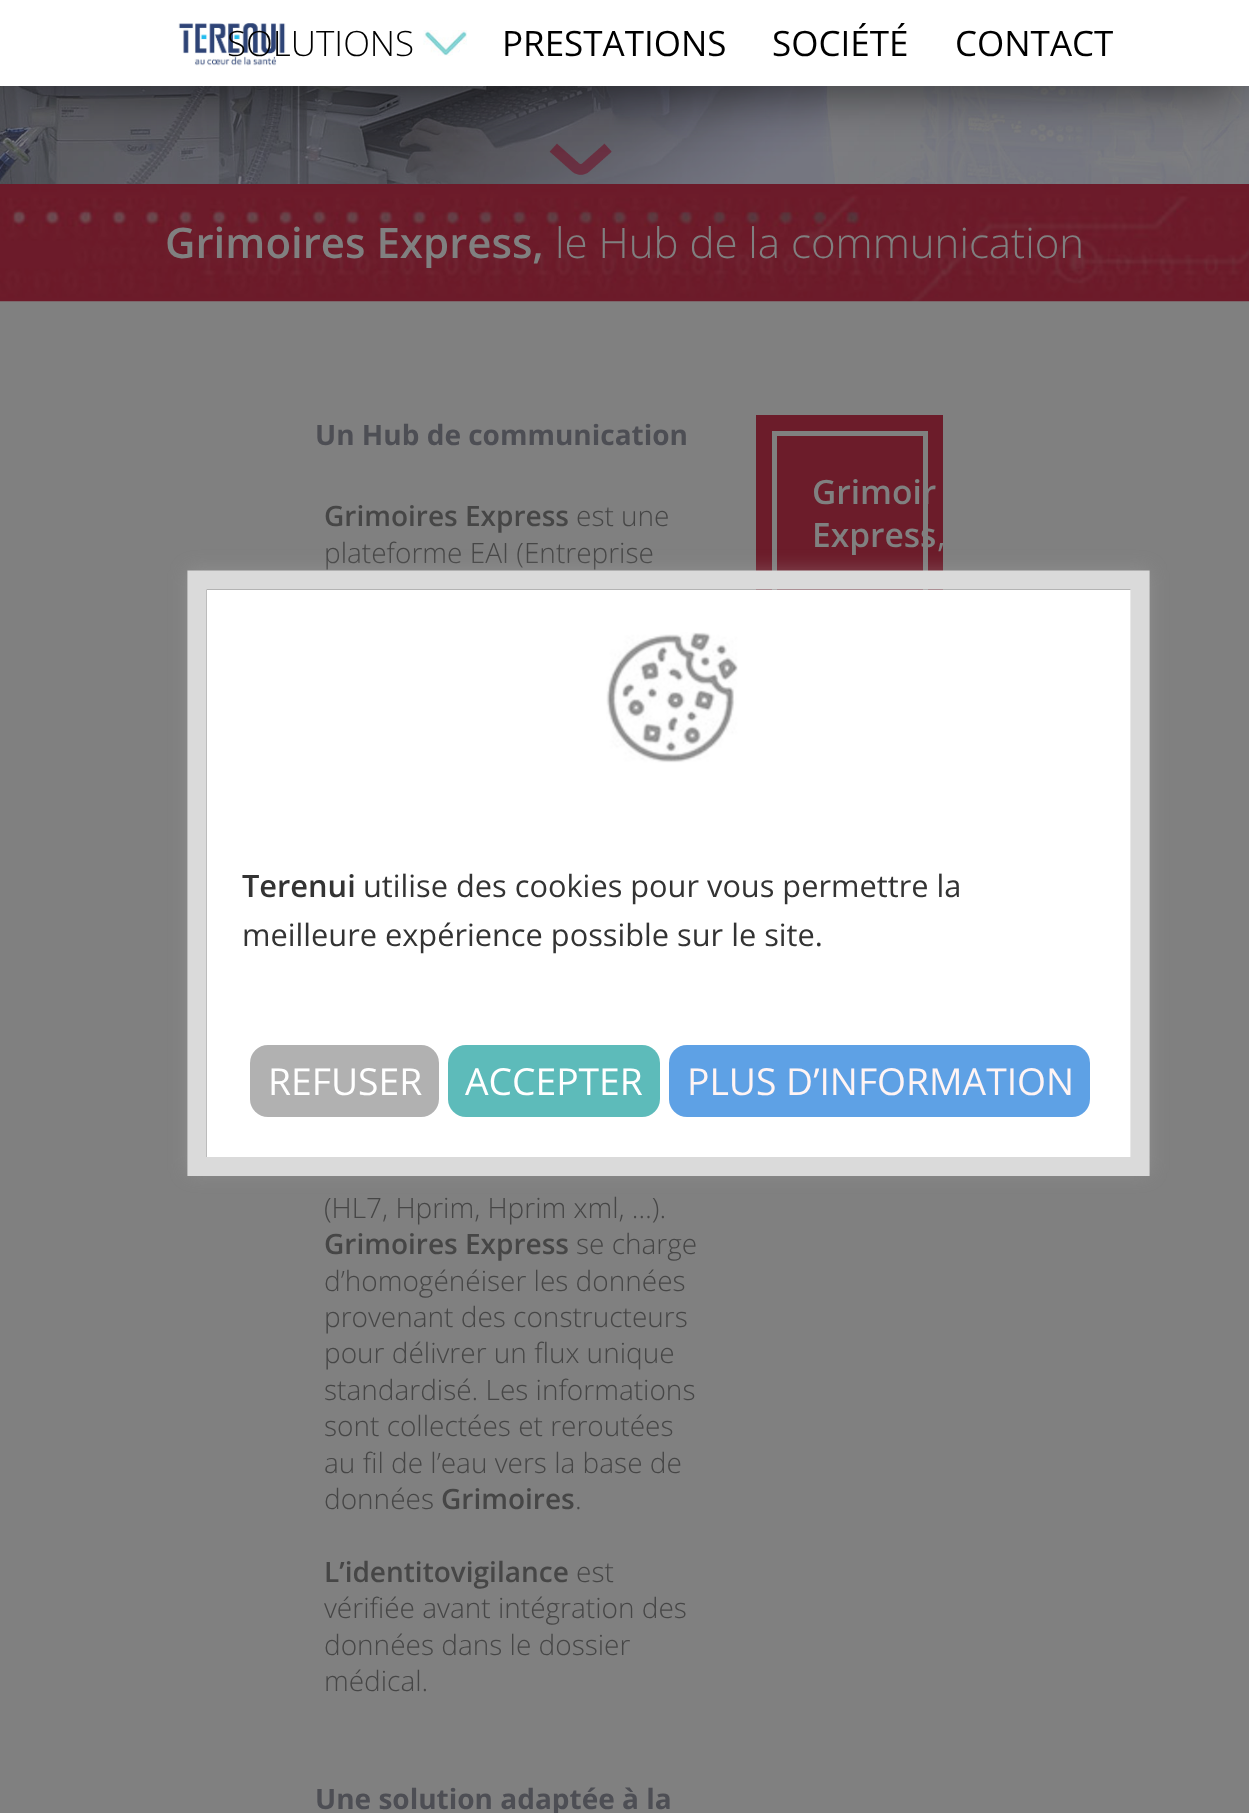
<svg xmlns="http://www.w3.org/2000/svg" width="1249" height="1813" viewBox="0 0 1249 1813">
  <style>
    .t1 { font: 300 35px Open Sans; fill: #000; }
    .t2 { font: 35px Open Sans; fill: #000; }
    .t3 { font: 600 42px Open Sans; fill: #808080; }
    .t4 { font: 300 42px Open Sans; fill: #808080; }
    .t5 { font: bold 28px Open Sans; fill: #4d4e54; }
    .t6 { font: 600 28px Open Sans; fill: #464646; }
    .t7 { font: 300 28px Open Sans; fill: #464646; }
    .t8 { font: 600 33.5px Open Sans; fill: #808080; }
    .t9 { font: 33.5px Open Sans; fill: #808080; }
    .t10 { font: 600 30.75px Open Sans; fill: #333; }
    .t11 { font: 30.75px Open Sans; fill: #333; }
    .t12 { font: 37.25px Open Sans; fill: #fff; }
    .t13 { font: 37.25px Open Sans; fill: #fff4f4; }
  </style>
  <rect width="100%" height="100%" fill="#808080"/>
  <image x="0" y="86" width="1249" height="98" href="images/3.png"/>
  <image x="549" y="143" width="63" height="32" href="images/4.png"/>
  <rect x="12" y="21" width="1229" height="65" fill="#000000a6" filter="blur(28px)"/>
  <rect x="0" y="0" width="1249" height="86" fill="#fff"/>
  <image x="178" y="23" width="108" height="43" href="images/2.png"/>
  <text x="227" y="56" class="t1">SOLUTIONS</text>
  <image x="423" y="30" width="44" height="26" href="images/1.png"/>
  <text x="502" y="56" class="t2">PRESTATIONS</text>
  <text x="772" y="56" class="t2">SOCIÉTÉ</text>
  <text x="955" y="56" class="t2">CONTACT</text>
  <image x="0" y="184" width="1249" height="118" href="images/5.png"/>
  <text x="165" y="258" class="t3">Grimoires Express,</text>
  <text x="555" y="258" class="t4">le Hub de la communication</text>
  <text x="315" y="445" class="t5">Un Hub de communication</text>
  <text x="324" y="526" class="t6">Grimoires Express</text>
  <text x="576" y="526" class="t7">est une</text>
  <text x="324" y="563" class="t7">plateforme EAI (Entreprise</text>
  <text x="324" y="1218" class="t7">(HL7, Hprim, Hprim xml, …).</text>
  <text x="324" y="1254" class="t6">Grimoires Express</text>
  <text x="576" y="1254" class="t7">se charge</text>
  <text x="324" y="1291" class="t7">d’homogénéiser les données</text>
  <text x="324" y="1327" class="t7">provenant des constructeurs</text>
  <text x="324" y="1363" class="t7">pour délivrer un flux unique</text>
  <text x="324" y="1400" class="t7">standardisé. Les informations</text>
  <text x="324" y="1436" class="t7">sont collectées et reroutées</text>
  <text x="324" y="1473" class="t7">au fil de l’eau vers la base de</text>
  <text x="324" y="1509" class="t7">données</text>
  <text x="441" y="1509" class="t6">Grimoires</text>
  <text x="575" y="1509" class="t7">.</text>
  <text x="324" y="1582" class="t6">L’identitovigilance</text>
  <text x="576" y="1582" class="t7">est</text>
  <text x="324" y="1618" class="t7">vérifiée avant intégration des</text>
  <text x="324" y="1655" class="t7">données dans le dossier</text>
  <text x="324" y="1691" class="t7">médical.</text>
  <text x="315" y="1809" class="t5">Une solution adaptée à la</text>
  <rect x="756" y="415" width="187" height="175" fill="#6c1c2a"/>
  <rect x="774.5" y="433.5" width="151" height="467" fill="none" stroke="#808080" stroke-width="5"/>
  <text x="812" y="504" class="t8">Grimoir</text>
  <text x="812" y="547" class="t8">Express</text>
  <text x="937" y="547" class="t9">,</text>
  <rect x="187" y="569" width="963" height="605" rx="5" fill="#acabab4d" filter="blur(9px)"/>
  <rect x="207" y="590" width="924" height="567" fill="#fff"/>
  <path d="M197 580H1140V1166.5H197Z" fill="none" stroke="#dadada" stroke-width="19.2"/>
  <image x="606" y="632" width="132" height="131" href="images/6.png"/>
  <text x="242" y="897" class="t10">Terenui</text>
  <text x="363" y="897" class="t11">utilise des cookies pour vous permettre la</text>
  <text x="242" y="946" class="t11">meilleure expérience possible sur le site.</text>
  <rect x="250" y="1045" width="189" height="72" rx="18" fill="#b1b1b1"/>
  <text x="268" y="1095" class="t12">REFUSER</text>
  <rect x="448" y="1045" width="212" height="72" rx="18" fill="#5dbbba"/>
  <text x="465" y="1095" class="t12">ACCEPTER</text>
  <rect x="669" y="1045" width="421" height="72" rx="18" fill="#5ea1e5"/>
  <text x="687" y="1095" class="t13">PLUS D’INFORMATION</text>
</svg>
